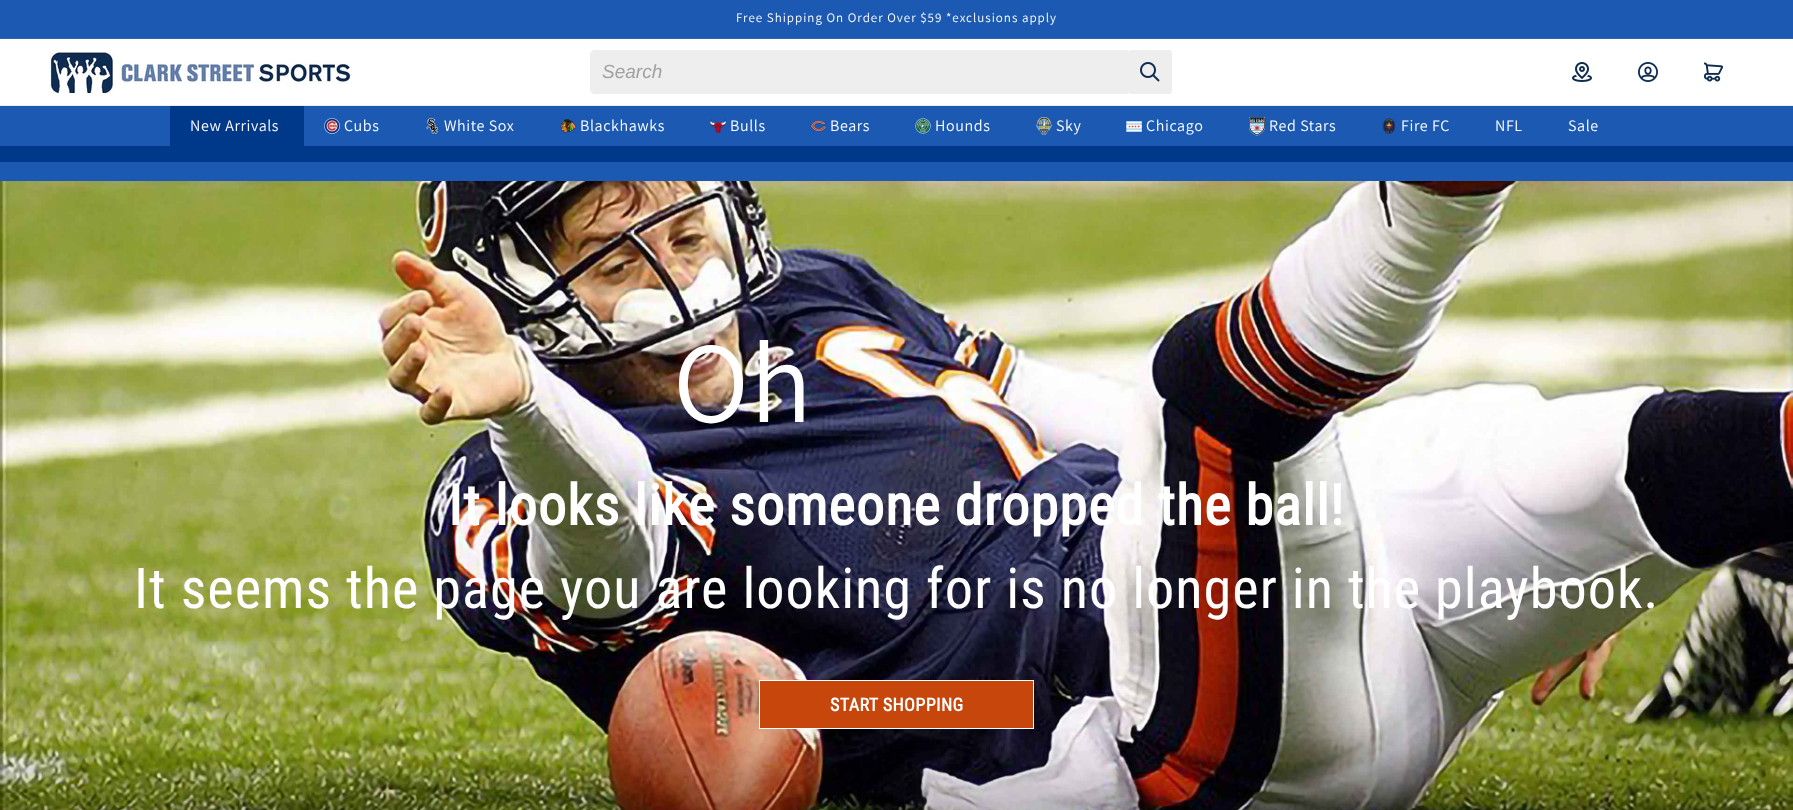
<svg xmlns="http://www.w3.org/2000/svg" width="1793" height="810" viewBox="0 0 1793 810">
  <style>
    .t1 { font: 13px Assistant; letter-spacing: 1px; fill: #fff; }
    .t2 { font: italic 19px Liberation Sans; fill: #a1a1a1; }
    .t3 { font: 16px Assistant; letter-spacing: 0.6px; fill: #fff; }
    .t4 { font: 115px Assistant; letter-spacing: 1px; fill: #fff; }
    .t5 { font: bold 56.3px Roboto Condensed; letter-spacing: 1px; fill: #fff; }
    .t6 { font: 56.3px Roboto Condensed; letter-spacing: 1px; fill: #fff; }
    .t7 { font: bold 18px Roboto Condensed; letter-spacing: 0.4px; fill: #fff; }
  </style>
  <rect width="100%" height="100%" fill="#fff"/>
  <rect x="0" y="0" width="1793" height="38" fill="#1b59b2"/>
  <rect x="0" y="38" width="1793" height="1" fill="#2d66b8"/>
  <text x="736" y="22" class="t1">Free Shipping On Order Over $59 *exclusions apply</text>
  <rect x="0" y="105" width="1793" height="1" fill="#ececec"/>
  <image x="50" y="52" width="300" height="41" href="images/1.png"/>
  <path d="M595 50H1128V94H595C592 94 590 92 590 89V55C590 52 592 50 595 50Z" fill="#eee"/>
  <text x="602" y="78" class="t2">Search</text>
  <rect x="1128" y="50" width="44" height="44" rx="3" fill="#eee"/>
  <image x="1140" y="62" width="20" height="20" href="images/2.png"/>
  <image x="1572" y="62" width="20" height="20" href="images/3.png"/>
  <image x="1638" y="62" width="20" height="20" href="images/4.png"/>
  <image x="1704" y="62" width="20" height="20" href="images/5.png"/>
  <rect x="0" y="106" width="1793" height="75" fill="#1b59b2"/>
  <rect x="170" y="106" width="134" height="40" fill="#003989"/>
  <text x="190" y="131" class="t3">New Arrivals</text>
  <rect x="0" y="146" width="1793" height="16" fill="#003989"/>
  <image x="324" y="118" width="16" height="16" href="images/6.png"/>
  <text x="344" y="131" class="t3">Cubs</text>
  <image x="426" y="118" width="12" height="16" href="images/7.png"/>
  <text x="444" y="131" class="t3">White Sox</text>
  <image x="560" y="119" width="16" height="14" href="images/8.png"/>
  <text x="580" y="131" class="t3">Blackhawks</text>
  <image x="710" y="119" width="16" height="15" href="images/9.png"/>
  <text x="730" y="131" class="t3">Bulls</text>
  <image x="810" y="120" width="16" height="12" href="images/10.png"/>
  <text x="830" y="131" class="t3">Bears</text>
  <image x="915" y="118" width="16" height="16" href="images/11.png"/>
  <text x="935" y="131" class="t3">Hounds</text>
  <image x="1036" y="117" width="16" height="18" href="images/12.png"/>
  <text x="1056" y="131" class="t3">Sky</text>
  <image x="1126" y="121" width="16" height="11" href="images/13.png"/>
  <text x="1146" y="131" class="t3">Chicago</text>
  <image x="1249" y="117" width="16" height="19" href="images/14.png"/>
  <text x="1269" y="131" class="t3">Red Stars</text>
  <image x="1382" y="118" width="14" height="16" href="images/15.png"/>
  <text x="1401" y="131" class="t3">Fire FC</text>
  <text x="1495" y="131" class="t3">NFL</text>
  <text x="1568" y="131" class="t3">Sale</text>
  <image x="0" y="181" width="1793" height="629" href="images/16.png"/>
  <text x="673" y="422" class="t4">Oh</text>
  <text x="448" y="525" class="t5">It looks like someone dropped the ball!</text>
  <text x="134" y="608" class="t6">It seems the page you are looking for is no longer in the playbook.</text>
  <rect x="759.5" y="680.5" width="274" height="48" fill="#c6460b" stroke="#fff"/>
  <text x="830" y="711" class="t7">START SHOPPING</text>
</svg>
